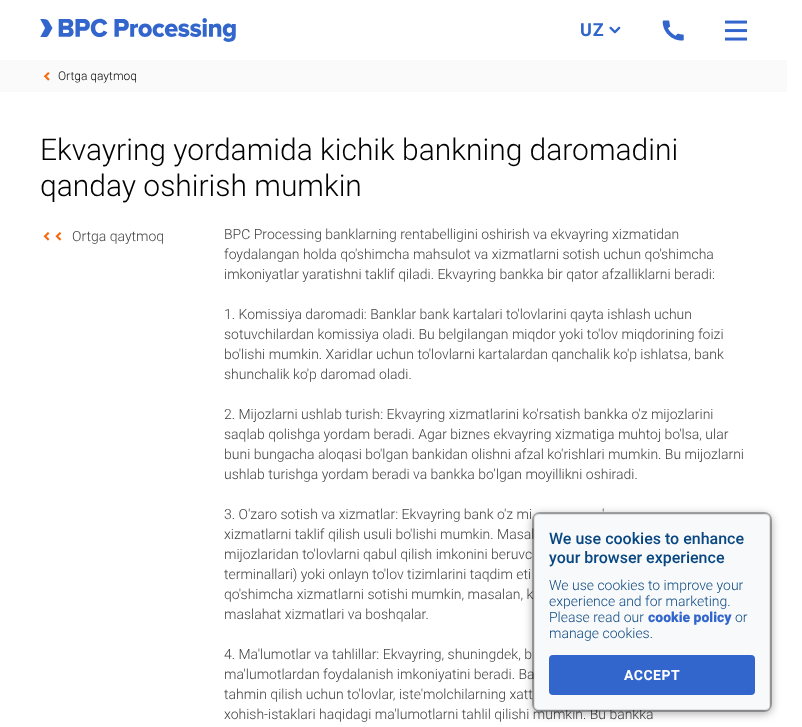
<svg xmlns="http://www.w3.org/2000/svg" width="802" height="727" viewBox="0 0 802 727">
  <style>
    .t1 { font: bold 18px Roboto; letter-spacing: 1px; fill: #36c; }
    .t2 { font: 300 12px Roboto; fill: #000; }
    .t3 { font: 300 30px Roboto; fill: #000; }
    .t4 { font: 300 14px Roboto; fill: #414141; }
    .t5 { font: 500 16px Roboto; fill: #084781; }
    .t6 { font: 300 14px Roboto; fill: #084781; }
    .t7 { font: 900 14px Roboto; fill: #36c; }
    .t8 { font: bold 14px Roboto; letter-spacing: 0.5px; fill: #fff; }
  </style>
  <rect width="100%" height="100%" fill="#fff"/>
  <image x="40" y="18" width="196" height="24" href="images/1.png"/>
  <text x="580" y="36" class="t1">UZ</text>
  <image x="609" y="26" width="12" height="8" href="images/2.png"/>
  <image x="662" y="20" width="22" height="21" href="images/3.png"/>
  <image x="725" y="20" width="22" height="21" href="images/4.png"/>
  <rect x="0" y="60" width="787" height="32" fill="#fafafa"/>
  <image x="43" y="72" width="7" height="9" href="images/5.png"/>
  <text x="58" y="80" class="t2">Ortga qaytmoq</text>
  <text x="40" y="160" class="t3">Ekvayring yordamida kichik bankning daromadini</text>
  <text x="40" y="196" class="t3">qanday oshirish mumkin</text>
  <image x="43" y="232" width="19" height="9" href="images/6.png"/>
  <text x="72" y="241" class="t4">Ortga qaytmoq</text>
  <text x="224" y="239" class="t4">BPC Processing banklarning rentabelligini oshirish va ekvayring xizmatidan</text>
  <text x="224" y="259" class="t4">foydalangan holda qo'shimcha mahsulot va xizmatlarni sotish uchun qo'shimcha</text>
  <text x="224" y="279" class="t4">imkoniyatlar yaratishni taklif qiladi. Ekvayring bankka bir qator afzalliklarni beradi:</text>
  <text x="224" y="319" class="t4">1. Komissiya daromadi: Banklar bank kartalari to'lovlarini qayta ishlash uchun</text>
  <text x="224" y="339" class="t4">sotuvchilardan komissiya oladi. Bu belgilangan miqdor yoki to'lov miqdorining foizi</text>
  <text x="224" y="359" class="t4">bo'lishi mumkin. Xaridlar uchun to'lovlarni kartalardan qanchalik ko'p ishlatsa, bank</text>
  <text x="224" y="379" class="t4">shunchalik ko'p daromad oladi.</text>
  <text x="224" y="419" class="t4">2. Mijozlarni ushlab turish: Ekvayring xizmatlarini ko'rsatish bankka o'z mijozlarini</text>
  <text x="224" y="439" class="t4">saqlab qolishga yordam beradi. Agar biznes ekvayring xizmatiga muhtoj bo'lsa, ular</text>
  <text x="224" y="459" class="t4">buni bungacha aloqasi bo'lgan bankidan olishni afzal ko'rishlari mumkin. Bu mijozlarni</text>
  <text x="224" y="479" class="t4">ushlab turishga yordam beradi va bankka bo’lgan moyillikni oshiradi.</text>
  <text x="224" y="519" class="t4">3. O'zaro sotish va xizmatlar: Ekvayring bank o'z mi</text>
  <text x="602" y="519" class="t4">'</text>
  <text x="224" y="539" class="t4">xizmatlarni taklif qilish usuli bo'lishi mumkin. Masal</text>
  <text x="224" y="559" class="t4">mijozlaridan to'lovlarni qabul qilish imkonini beruvc</text>
  <text x="224" y="579" class="t4">terminallari) yoki onlayn to'lov tizimlarini taqdim eti</text>
  <text x="224" y="599" class="t4">qo'shimcha xizmatlarni sotishi mumkin, masalan, k</text>
  <text x="224" y="619" class="t4">maslahat xizmatlari va boshqalar.</text>
  <text x="224" y="659" class="t4">4. Ma'lumotlar va tahlillar: Ekvayring, shuningdek, b</text>
  <text x="224" y="679" class="t4">ma'lumotlardan foydalanish imkoniyatini beradi. Ba</text>
  <text x="224" y="699" class="t4">tahmin qilish uchun to'lovlar, iste'molchilarning xatt</text>
  <text x="224" y="719" class="t4">xohish-istaklari haqidagi ma'lumotlarni tahlil qilishi mumkin. Bu bankka</text>
  <rect x="532" y="514" width="240" height="200" rx="8" fill="#0000004d" filter="blur(4px)"/>
  <rect x="532" y="512" width="240" height="200" rx="8" fill="#0000004d"/>
  <rect x="534.5" y="514.5" width="235" height="195" rx="3.5" fill="#f8f9fa" stroke="#dee2e6"/>
  <text x="549" y="544" class="t5">We use cookies to enhance</text>
  <text x="549" y="563" class="t5">your browser experience</text>
  <text x="549" y="590" class="t6">We use cookies to improve your</text>
  <text x="549" y="606" class="t6">experience and for marketing.</text>
  <text x="549" y="622" class="t6">Please read our</text>
  <text x="648" y="622" class="t7">cookie policy</text>
  <text x="735" y="622" class="t6">or</text>
  <text x="549" y="638" class="t6">manage cookies.</text>
  <rect x="549" y="655" width="206" height="40" rx="4" fill="#36c"/>
  <text x="624" y="680" class="t8">ACCEPT</text>
</svg>
